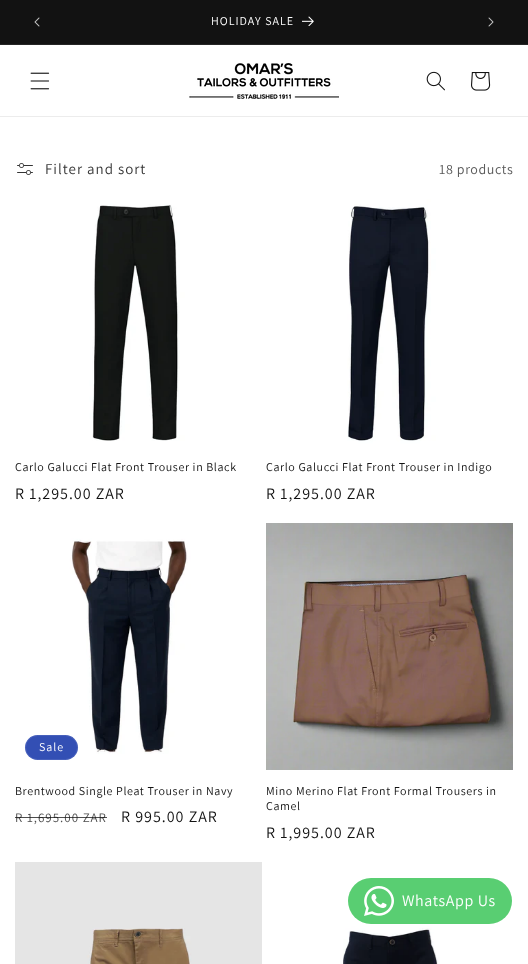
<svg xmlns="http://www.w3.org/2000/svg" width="528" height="964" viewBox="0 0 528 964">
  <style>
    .t1 { font: 12px Assistant; letter-spacing: 1px; fill: #fff; }
    .t2 { font: 15px Assistant; letter-spacing: 1px; fill: #363636; }
    .t3 { font: 14px Assistant; letter-spacing: 0.6px; fill: #595959; }
    .t4 { font: 12px Assistant; letter-spacing: 0.6px; fill: #121212; }
    .t5 { font: 16px Assistant; letter-spacing: 1px; fill: #121212; }
    .t6 { font: 13px Assistant; letter-spacing: 1px; fill: #4d4d4d; }
    .t7 { font: 16px Assistant; letter-spacing: 0.6px; fill: #fff; }
  </style>
  <rect width="100%" height="100%" fill="#fff"/>
  <rect x="0" y="0" width="528" height="44" fill="#121212"/>
  <rect x="0" y="44" width="528" height="1" fill="#252525"/>
  <image x="34" y="17" width="6" height="10" href="images/1.png"/>
  <text x="211" y="25" class="t1">HOLIDAY SALE</text>
  <image x="302" y="16" width="12" height="10" href="images/2.png"/>
  <image x="488" y="17" width="6" height="10" href="images/3.png"/>
  <rect x="0" y="116" width="528" height="1" fill="#ececec"/>
  <image x="30" y="72" width="20" height="18" href="images/4.png"/>
  <image x="189" y="63" width="150" height="36" href="images/5.png"/>
  <image x="426" y="71" width="19" height="20" href="images/6.png"/>
  <image x="471" y="72" width="20" height="19" href="images/7.png"/>
  <image x="17" y="163" width="16" height="12" href="images/8.png"/>
  <text x="45" y="174" class="t2">Filter and sort</text>
  <text x="439" y="174" class="t3">18 products</text>
  <image x="15" y="199" width="247" height="247" href="images/9.png"/>
  <text x="15" y="471" class="t4">Carlo Galucci Flat Front Trouser in Black</text>
  <text x="15" y="499" class="t5">R 1,295.00 ZAR</text>
  <image x="266" y="199" width="247" height="247" href="images/10.png"/>
  <text x="266" y="471" class="t4">Carlo Galucci Flat Front Trouser in Indigo</text>
  <text x="266" y="499" class="t5">R 1,295.00 ZAR</text>
  <image x="15" y="523" width="247" height="247" href="images/11.png"/>
  <rect x="25" y="735" width="53" height="25" rx="12.5" fill="#334fb4"/>
  <rect x="25.5" y="735.5" width="52" height="24" rx="12" fill="none" stroke="#ffffff1a"/>
  <text x="39" y="751" class="t1">Sale</text>
  <text x="15" y="795" class="t4">Brentwood Single Pleat Trouser in Navy</text>
  <text x="15" y="822" class="t6">R 1,695.00 ZAR</text>
  <rect x="15" y="817" width="92" height="1" fill="#121212bf"/>
  <text x="121" y="822" class="t5">R 995.00 ZAR</text>
  <image x="266" y="523" width="247" height="247" href="images/12.png"/>
  <text x="266" y="795" class="t4">Mino Merino Flat Front Formal Trousers in</text>
  <text x="266" y="810" class="t4">Camel</text>
  <text x="266" y="838" class="t5">R 1,995.00 ZAR</text>
  <image x="15" y="862" width="247" height="102" href="images/13.png"/>
  <image x="266" y="862" width="247" height="102" href="images/14.png"/>
  <rect x="348" y="878" width="164" height="46" rx="23" fill="#59ce72"/>
  <image x="364" y="886" width="30" height="30" href="images/15.png"/>
  <text x="402" y="906" class="t7">WhatsApp Us</text>
</svg>
